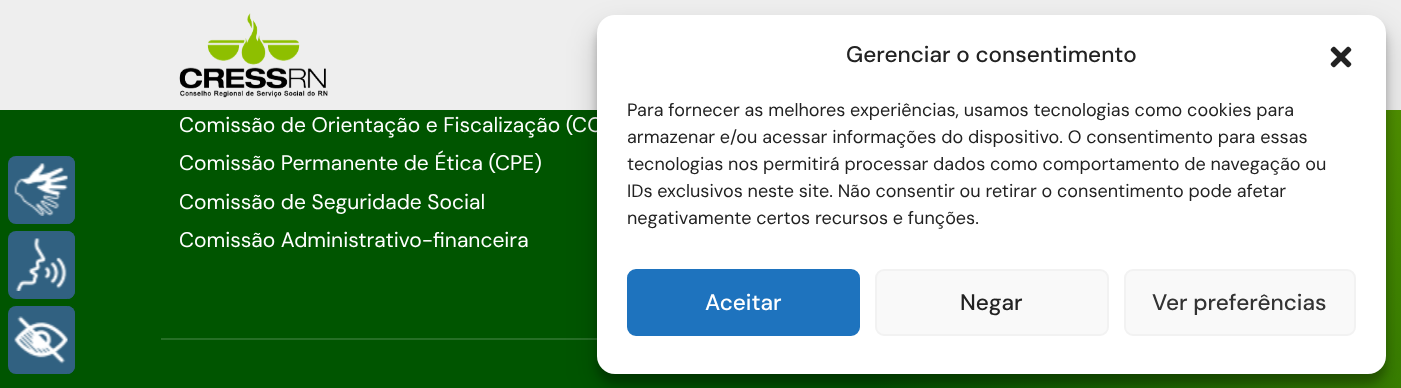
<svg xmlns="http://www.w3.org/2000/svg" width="1401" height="388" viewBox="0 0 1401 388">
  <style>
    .t1 { font: 21px DM Sans; fill: #fff; }
    .t2 { font: 500 22.5px DM Sans; fill: #222; }
    .t3 { font: 18px 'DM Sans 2'; fill: #222; }
    .t4 { font: 500 22.5px DM Sans; fill: #fff; }
    .t5 { font: 500 22.5px DM Sans; fill: #333; }
  </style>
  <defs>
    <linearGradient id="g1" gradientUnits="userSpaceOnUse" x1="-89" y1="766" x2="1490" y2="-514"><stop offset="0" stop-color="#8ebf00"/><stop offset="0" stop-color="#050"/><stop offset="0.48" stop-color="#050"/><stop offset="1" stop-color="#8ebf00"/></linearGradient>
    <clipPath id="clip1"><rect x="8" y="156" width="67" height="68" rx="8"/></clipPath>
    <clipPath id="clip2"><rect x="8" y="231" width="67" height="68" rx="8"/></clipPath>
    <clipPath id="clip3"><rect x="8" y="306" width="67" height="68" rx="8"/></clipPath>
    <linearGradient id="g2" gradientUnits="userSpaceOnUse" x1="-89" y1="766" x2="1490" y2="-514"><stop offset="0" stop-color="#9fc926"/><stop offset="0" stop-color="#266f26"/><stop offset="0.48" stop-color="#266f26"/><stop offset="1" stop-color="#9fc926"/></linearGradient>
  </defs>
  <rect width="100%" height="100%" fill="#fff"/>
  <rect x="0" y="0" width="1401" height="110" fill="#eee"/>
  <image x="179" y="13" width="149" height="85" href="images/1.png"/>
  <rect x="0" y="110" width="1401" height="278" fill="url(#g1)"/>
  <rect x="8" y="156" width="67" height="68" rx="8" fill="#316181"/>
  <image x="14" y="163" width="54" height="53" href="images/2.png"/>
  <g clip-path="url(#clip1)">
    <rect x="68" y="156" width="7" height="68" fill="#316181"/>
  </g>
  <rect x="8" y="231" width="67" height="68" rx="8" fill="#316181"/>
  <image x="15" y="238" width="52" height="53" href="images/3.png"/>
  <g clip-path="url(#clip2)">
    <rect x="68" y="231" width="7" height="68" fill="#316181"/>
  </g>
  <rect x="8" y="306" width="67" height="68" rx="8" fill="#316181"/>
  <image x="14" y="316" width="54" height="48" href="images/4.png"/>
  <g clip-path="url(#clip3)">
    <rect x="68" y="306" width="7" height="68" fill="#316181"/>
  </g>
  <rect x="161" y="338" width="436" height="2" fill="url(#g2)"/>
  <text x="179" y="132" class="t1">Comissão de Orientação e Fiscalização (CO</text>
  <text x="179" y="170" class="t1">Comissão Permanente de Ética (CPE)</text>
  <text x="179" y="209" class="t1">Comissão de Seguridade Social</text>
  <text x="179" y="247" class="t1">Comissão Administrativo-financeira</text>
  <rect x="597" y="24" width="789" height="359" rx="18" fill="#0000003b" filter="blur(4.5px)"/>
  <rect x="597" y="30" width="789" height="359" rx="18" fill="#00000030" filter="blur(15px)"/>
  <rect x="597" y="15" width="789" height="359" rx="18" fill="#fff"/>
  <text x="846" y="62" class="t2">Gerenciar o consentimento</text>
  <image x="1330" y="46" width="22" height="22" href="images/5.png"/>
  <text x="627" y="116" class="t3">Para fornecer as melhores experiências, usamos tecnologias como cookies para</text>
  <text x="627" y="143" class="t3">armazenar e/ou acessar informações do dispositivo. O consentimento para essas</text>
  <text x="627" y="170" class="t3">tecnologias nos permitirá processar dados como comportamento de navegação ou</text>
  <text x="627" y="197" class="t3">IDs exclusivos neste site. Não consentir ou retirar o consentimento pode afetar</text>
  <text x="627" y="224" class="t3">negativamente certos recursos e funções.</text>
  <rect x="628" y="270" width="231" height="65" rx="8" fill="#1e73be" stroke="#1e73be" stroke-width="2"/>
  <text x="705" y="310" class="t4">Aceitar</text>
  <rect x="876" y="270" width="232" height="65" rx="8" fill="#f9f9f9" stroke="#f2f2f2" stroke-width="2"/>
  <text x="960" y="310" class="t2">Negar</text>
  <rect x="1125" y="270" width="230" height="65" rx="8" fill="#f9f9f9" stroke="#f2f2f2" stroke-width="2"/>
  <text x="1152" y="310" class="t5">Ver preferências</text>
</svg>
